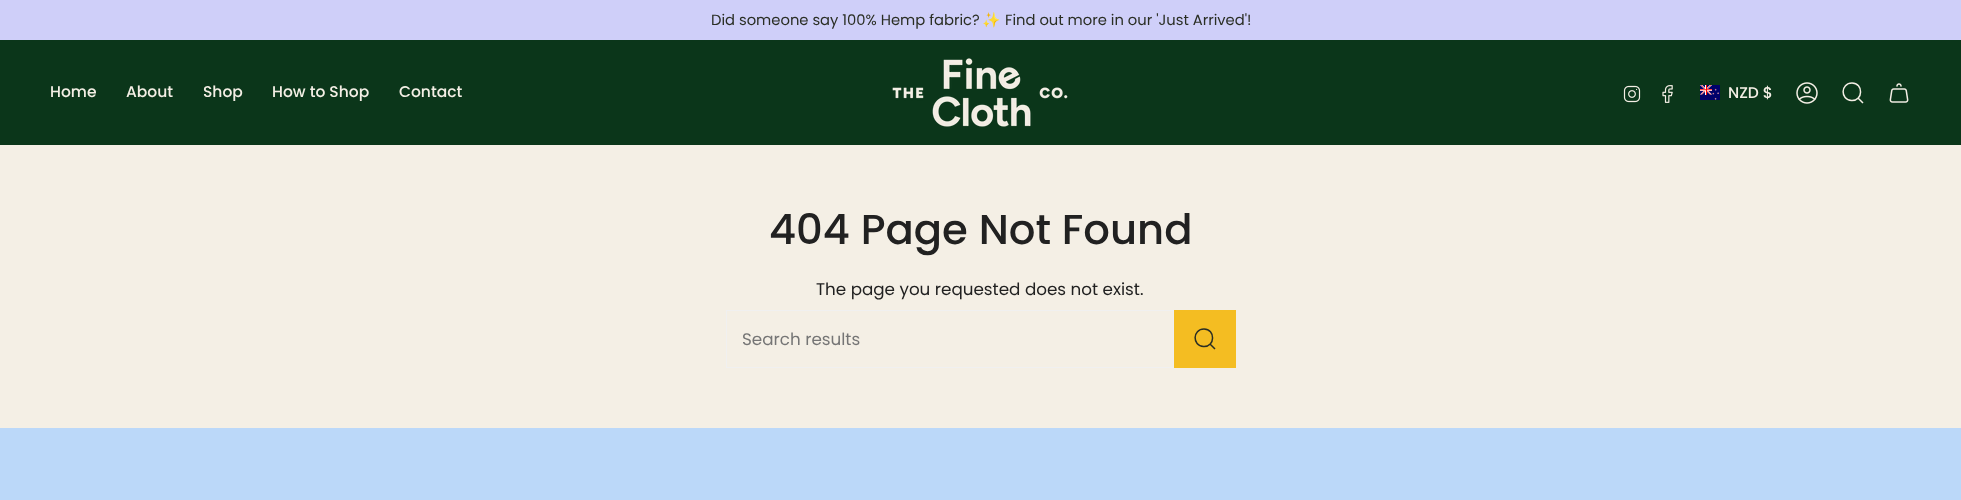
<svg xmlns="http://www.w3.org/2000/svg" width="1961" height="500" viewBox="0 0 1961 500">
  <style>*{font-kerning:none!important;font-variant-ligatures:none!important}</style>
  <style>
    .t1 { font: 14.75px Poppins; fill: #2a2e24; }
    .t2 { font: 14.75px Noto Color Emoji; fill: #2a2e24; }
    .t3 { font: 500 15.5px Poppins; fill: #f4efe5; }
    .t4 { font: 500 41.75px Poppins; fill: #212121; }
    .t5 { font: 16.75px Poppins; fill: #212121; }
    .t6 { font: 16.75px Poppins; fill: #757575; }
  </style>
  <rect width="100%" height="100%" fill="#f4efe5"/>
  <rect x="0" y="0" width="1961" height="40" fill="#cfcff9"/>
  <text x="711" y="25" class="t1">Did someone say 100% Hemp fabric?</text>
  <text x="982" y="25" class="t2">✨</text>
  <text x="1005" y="25" class="t1">Find out more in our 'Just Arrived'!</text>
  <rect x="0" y="40" width="1961" height="105" fill="#0b361a"/>
  <text x="50" y="97" class="t3">Home</text>
  <text x="126" y="97" class="t3">About</text>
  <text x="203" y="97" class="t3">Shop</text>
  <text x="272" y="97" class="t3">How to Shop</text>
  <text x="399" y="97" class="t3">Contact</text>
  <image x="892" y="58" width="176" height="69" href="images/1.png"/>
  <image x="1623" y="85" width="18" height="18" href="images/2.png"/>
  <image x="1662" y="85" width="11" height="18" href="images/3.png"/>
  <image x="1700" y="85" width="20" height="15" href="images/4.png"/>
  <text x="1728" y="98" class="t3">NZD $</text>
  <image x="1796" y="82" width="22" height="22" href="images/5.png"/>
  <path d="M1852 83C1863.5 83 1863.5 101 1851.5 100.5C1840 100 1840.5 83 1852 83ZM1858 98L1863 103" fill="none" stroke="#f4efe5" stroke-width="1.5"/>
  <image x="1889" y="83" width="20" height="20" href="images/6.png"/>
  <text x="769" y="244" class="t4">404 Page Not Found</text>
  <text x="816" y="295" class="t5">The page you requested does not exist.</text>
  <rect x="726.5" y="310.5" width="447" height="57" fill="none" stroke="#f0f0f0"/>
  <text x="742" y="345" class="t6">Search results</text>
  <rect x="1174" y="310" width="62" height="58" fill="#f4bd22"/>
  <path d="M1204 329C1215.5 329 1215.5 347 1203.5 346.5C1192 346 1192.5 329 1204 329ZM1210 344L1215 349" fill="none" stroke="#2a2e24" stroke-width="1.5"/>
  <rect x="0" y="428" width="1961" height="72" fill="#bbd8f9"/>
</svg>
